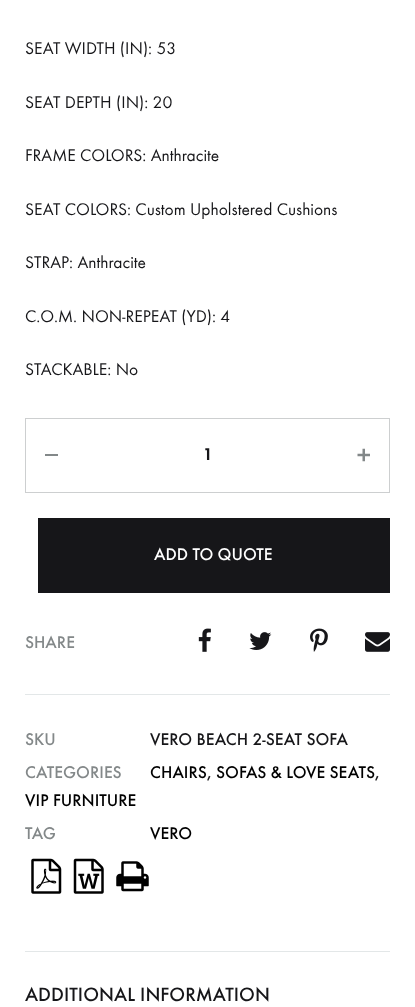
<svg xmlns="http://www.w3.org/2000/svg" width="415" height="1007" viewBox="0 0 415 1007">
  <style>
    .t1 { font: 17.5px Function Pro; fill: #161619; }
    .t2 { font: 600 17.5px Function Pro; fill: #161619; }
    .t3 { font: 500 17.5px Function Pro; fill: #fff; }
    .t4 { font: 500 17.5px Function Pro; fill: #838889; }
    .t5 { font: 500 17.5px Function Pro; fill: #161619; }
    .t6 { font: 500 17.5px Function Pro; fill: #000; }
    .t7 { font: 500 20px Function Pro; fill: #161619; }
  </style>
  <rect width="100%" height="100%" fill="#fff"/>
  <text x="25" y="54" class="t1">SEAT WIDTH (IN): 53</text>
  <text x="25" y="108" class="t1">SEAT DEPTH (IN): 20</text>
  <text x="25" y="161" class="t1">FRAME COLORS: Anthracite</text>
  <text x="25" y="215" class="t1">SEAT COLORS: Custom Upholstered Cushions</text>
  <text x="25" y="268" class="t1">STRAP: Anthracite</text>
  <text x="25" y="322" class="t1">C.O.M. NON-REPEAT (YD): 4</text>
  <text x="25" y="375" class="t1">STACKABLE: No</text>
  <rect x="25.5" y="418.5" width="364" height="74" fill="none" stroke="#cdcfd0"/>
  <rect x="45" y="454" width="13" height="2" fill="#838889"/>
  <text x="203" y="460" class="t2">1</text>
  <image x="357" y="448" width="13" height="14" href="images/1.png"/>
  <rect x="38" y="518" width="352" height="75" fill="#161619"/>
  <text x="154" y="560" class="t3">ADD TO QUOTE</text>
  <text x="25" y="648" class="t4">SHARE</text>
  <image x="198" y="628" width="13" height="24" href="images/2.png"/>
  <image x="249" y="632" width="23" height="18" href="images/3.png"/>
  <image x="310" y="628" width="18" height="24" href="images/4.png"/>
  <image x="365" y="632" width="25" height="20" href="images/5.png"/>
  <rect x="25" y="694" width="365" height="1" fill="#e3e7e8"/>
  <text x="25" y="745" class="t4">SKU</text>
  <text x="150" y="745" class="t5">VERO BEACH 2-SEAT SOFA</text>
  <text x="25" y="778" class="t4">CATEGORIES</text>
  <text x="150" y="778" class="t6">CHAIRS</text>
  <text x="207" y="778" class="t5">,</text>
  <text x="216" y="778" class="t6">SOFAS &amp; LOVE SEATS</text>
  <text x="375" y="778" class="t5">,</text>
  <text x="25" y="806" class="t6">VIP FURNITURE</text>
  <text x="25" y="839" class="t4">TAG</text>
  <text x="150" y="839" class="t6">VERO</text>
  <image x="31" y="858" width="31" height="36" href="images/6.png"/>
  <image x="73" y="858" width="31" height="36" href="images/7.png"/>
  <image x="116" y="861" width="33" height="31" href="images/8.png"/>
  <rect x="25" y="951" width="365" height="1" fill="#e3e7e8"/>
  <text x="25" y="1001" class="t7">ADDITIONAL INFORMATION</text>
</svg>
